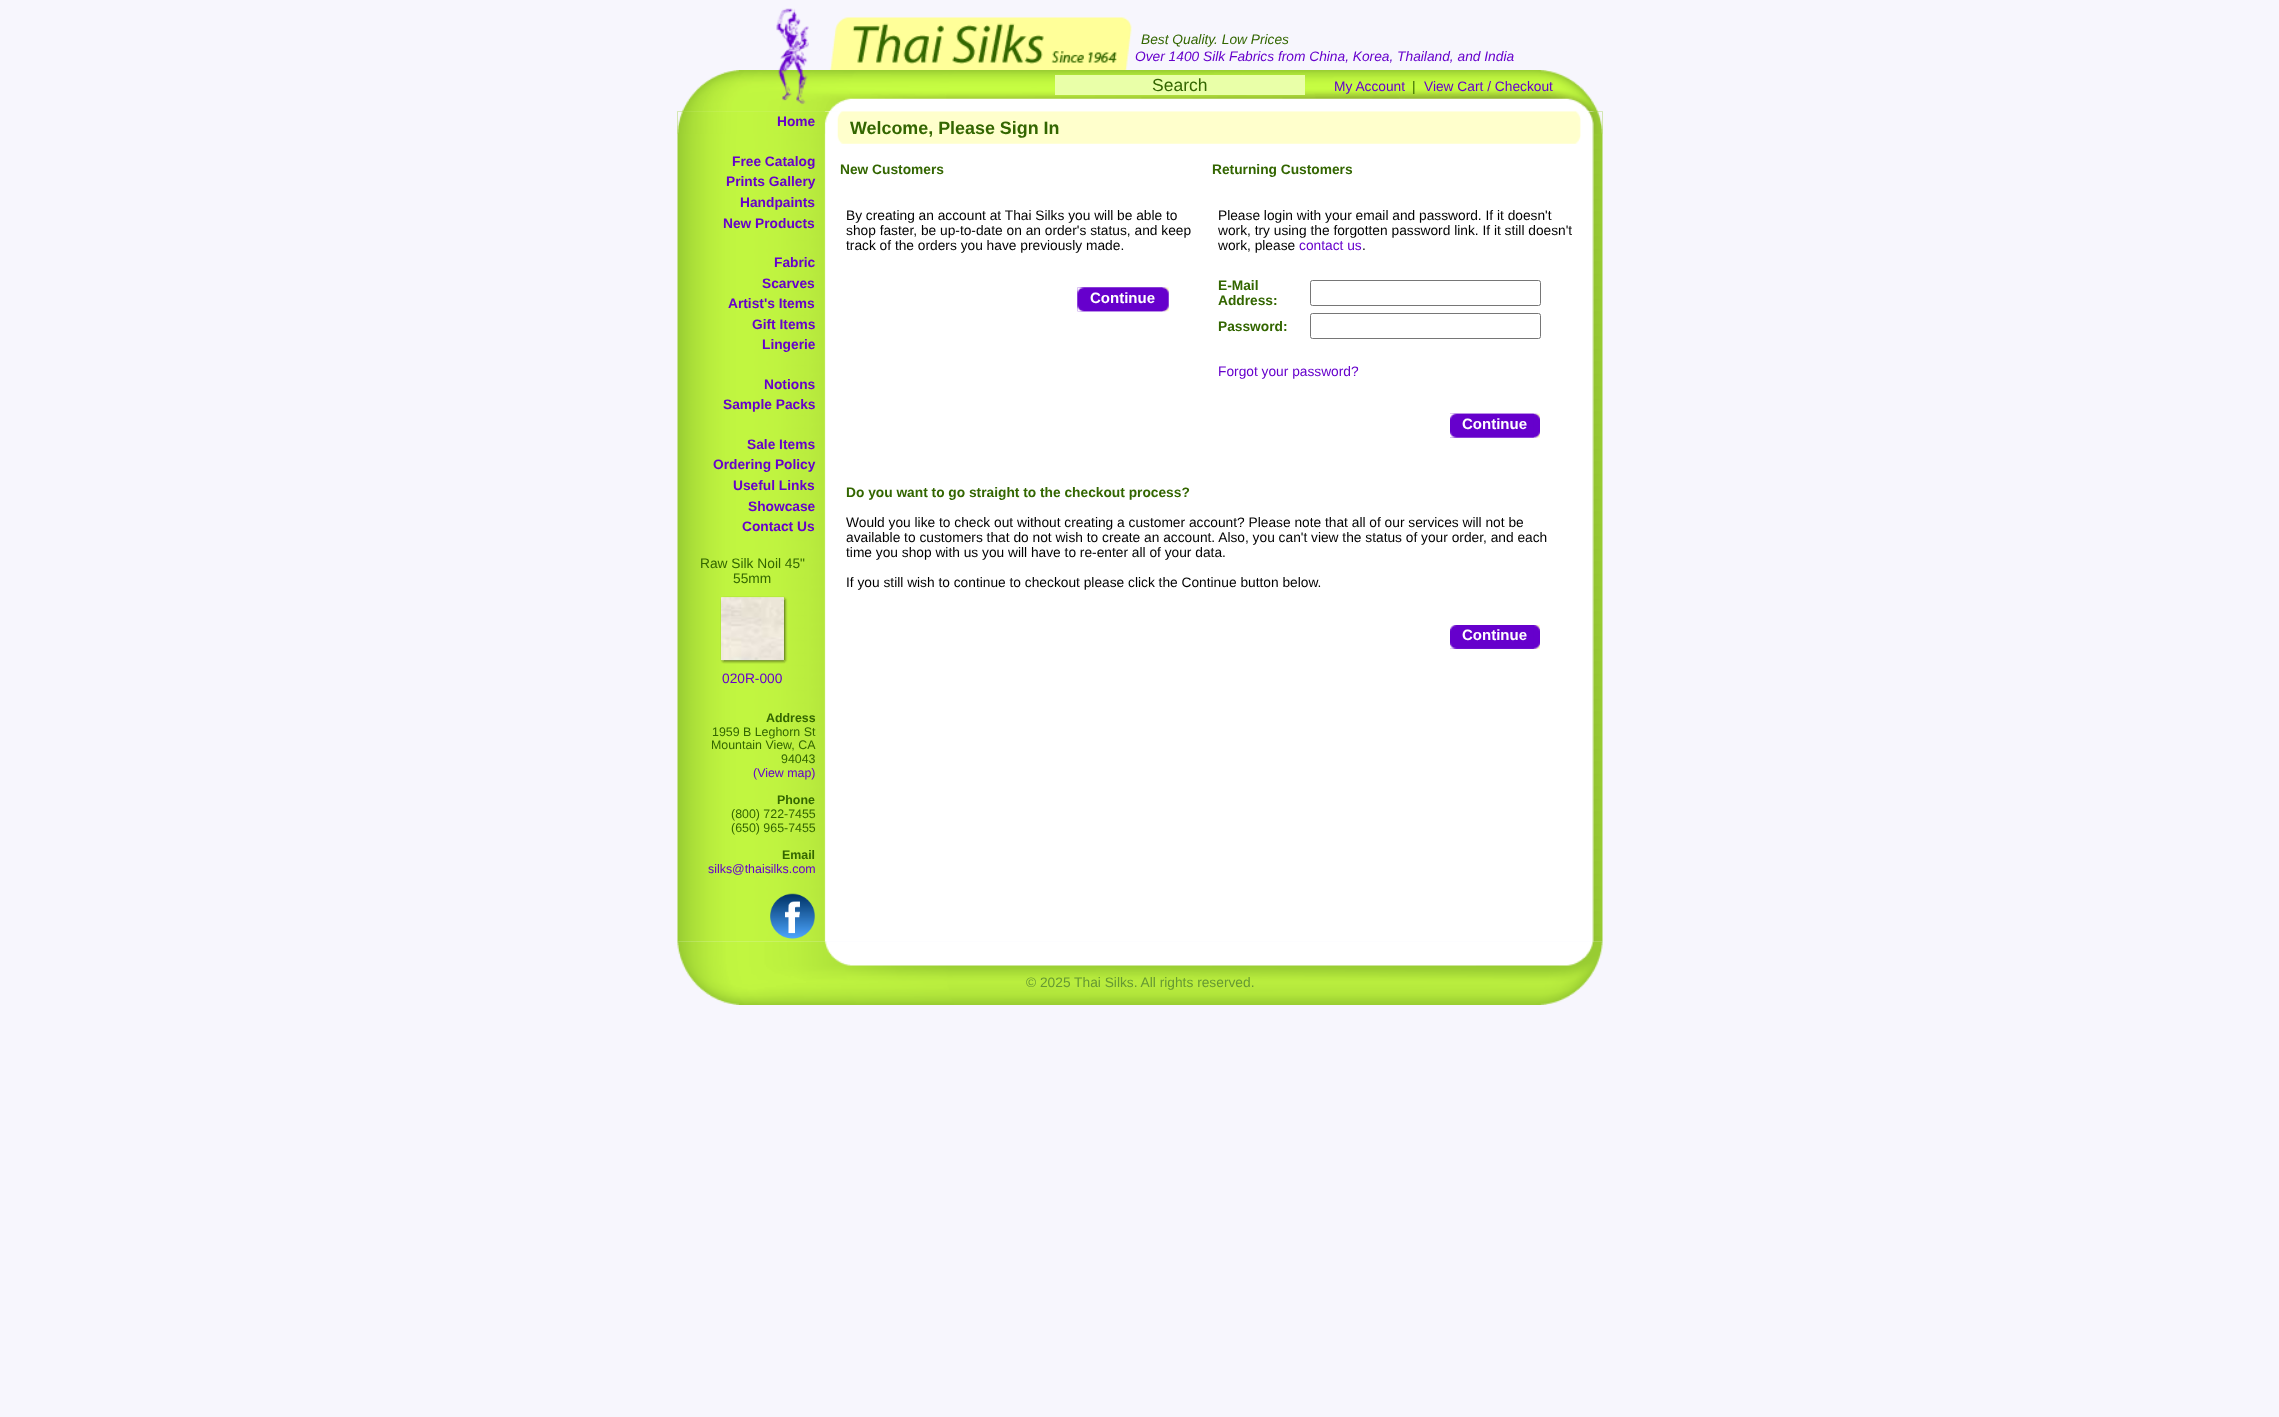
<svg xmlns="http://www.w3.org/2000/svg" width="2279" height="1417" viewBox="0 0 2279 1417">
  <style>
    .t1 { font: italic 13.75px Liberation Sans; fill: #360; }
    .t2 { font: italic 13.75px Liberation Sans; fill: #60c; }
    .t3 { font: 17.5px Liberation Sans; fill: #360; }
    .t4 { font: 13.75px Liberation Sans; fill: #60c; }
    .t5 { font: 13.75px Liberation Sans; fill: #360; }
    .t6 { font: bold 13.75px Liberation Sans; fill: #60c; }
    .t7 { font: bold 12.4px Liberation Sans; fill: #360; }
    .t8 { font: 12.4px Liberation Sans; fill: #360; }
    .t9 { font: 12.4px Liberation Sans; fill: #60c; }
    .t10 { font: bold 17.9px Liberation Sans; fill: #360; }
    .t11 { font: bold 13.75px Liberation Sans; fill: #360; }
    .t12 { font: 13.75px Liberation Sans; fill: #000; }
    .t13 { font: bold 15px Liberation Sans; fill: #fff; }
    .t14 { font: 13.75px Liberation Sans; fill: #693; }
  </style>
  <rect width="100%" height="100%" fill="#f7f6fd"/>
  <image x="776" y="8" width="356" height="62" href="images/1.png"/>
  <text x="1141" y="44" class="t1">Best Quality. Low Prices</text>
  <text x="1135" y="61" class="t2">Over 1400 Silk Fabrics from China, Korea, Thailand, and India</text>
  <image x="682" y="70" width="916" height="42" href="images/2.png"/>
  <rect x="1055" y="75" width="250" height="20" fill="#e9ffa8"/>
  <text x="1152" y="91" class="t3">Search</text>
  <text x="1334" y="91" class="t4">My Account</text>
  <text x="1412" y="91" class="t5">|</text>
  <text x="1424" y="91" class="t4">View Cart / Checkout</text>
  <image x="677" y="941" width="926" height="64" href="images/16.png"/>
  <image x="677" y="111" width="926" height="831" href="images/3.png"/>
  <image x="677" y="111" width="153" height="23" href="images/4.png"/>
  <text x="777" y="126" class="t6">Home</text>
  <text x="732" y="166" class="t6">Free Catalog</text>
  <text x="726" y="186" class="t6">Prints Gallery</text>
  <text x="740" y="207" class="t6">Handpaints</text>
  <text x="723" y="228" class="t6">New Products</text>
  <text x="774" y="267" class="t6">Fabric</text>
  <text x="762" y="288" class="t6">Scarves</text>
  <text x="728" y="308" class="t6">Artist's Items</text>
  <text x="752" y="329" class="t6">Gift Items</text>
  <text x="762" y="349" class="t6">Lingerie</text>
  <text x="764" y="389" class="t6">Notions</text>
  <text x="723" y="409" class="t6">Sample Packs</text>
  <text x="747" y="449" class="t6">Sale Items</text>
  <text x="713" y="469" class="t6">Ordering Policy</text>
  <text x="733" y="490" class="t6">Useful Links</text>
  <text x="748" y="511" class="t6">Showcase</text>
  <text x="742" y="531" class="t6">Contact Us</text>
  <text x="700" y="568" class="t5">Raw Silk Noil 45"</text>
  <text x="733" y="583" class="t5">55mm</text>
  <image x="720" y="596" width="68" height="68" href="images/5.png"/>
  <image x="721" y="597" width="63" height="63" href="images/6.png"/>
  <text x="722" y="683" class="t4">020R-000</text>
  <text x="766" y="722" class="t7">Address</text>
  <text x="712" y="736" class="t8">1959 B Leghorn St</text>
  <text x="711" y="749" class="t8">Mountain View, CA</text>
  <text x="781" y="763" class="t8">94043</text>
  <text x="753" y="777" class="t9">(View map)</text>
  <text x="777" y="804" class="t7">Phone</text>
  <text x="731" y="818" class="t8">(800) 722-7455</text>
  <text x="731" y="832" class="t8">(650) 965-7455</text>
  <text x="782" y="859" class="t7">Email</text>
  <text x="708" y="873" class="t9">silks@thaisilks.com</text>
  <image x="770" y="893" width="45" height="46" href="images/7.png"/>
  <image x="837" y="111" width="744" height="33" href="images/8.png"/>
  <text x="850" y="134" class="t10">Welcome, Please Sign In</text>
  <text x="840" y="174" class="t11">New Customers</text>
  <text x="1212" y="174" class="t11">Returning Customers</text>
  <text x="846" y="220" class="t12">By creating an account at Thai Silks you will be able to</text>
  <text x="846" y="235" class="t12">shop faster, be up-to-date on an order's status, and keep</text>
  <text x="846" y="250" class="t12">track of the orders you have previously made.</text>
  <image x="1077" y="287" width="92" height="25" href="images/9.png"/>
  <image x="1077" y="287" width="86" height="25" href="images/10.png"/>
  <text x="1090" y="303" class="t13">Continue</text>
  <text x="1218" y="220" class="t12">Please login with your email and password. If it doesn't</text>
  <text x="1218" y="235" class="t12">work, try using the forgotten password link. If it still doesn't</text>
  <text x="1218" y="250" class="t12">work, please</text>
  <text x="1299" y="250" class="t4">contact us</text>
  <text x="1362" y="250" class="t12">.</text>
  <text x="1218" y="290" class="t11">E-Mail</text>
  <text x="1218" y="305" class="t11">Address:</text>
  <rect x="1310.5" y="280.5" width="230" height="25" rx="2" fill="none" stroke="#767676"/>
  <text x="1218" y="331" class="t11">Password:</text>
  <rect x="1310.5" y="313.5" width="230" height="25" rx="2" fill="none" stroke="#767676"/>
  <text x="1218" y="376" class="t4">Forgot your password?</text>
  <image x="1450" y="413" width="90" height="25" href="images/11.png"/>
  <image x="1450" y="413" width="84" height="25" href="images/12.png"/>
  <text x="1462" y="429" class="t13">Continue</text>
  <text x="846" y="497" class="t11">Do you want to go straight to the checkout process?</text>
  <text x="846" y="527" class="t12">Would you like to check out without creating a customer account? Please note that all of our services will not be</text>
  <text x="846" y="542" class="t12">available to customers that do not wish to create an account. Also, you can't view the status of your order, and each</text>
  <text x="846" y="557" class="t12">time you shop with us you will have to re-enter all of your data.</text>
  <text x="846" y="587" class="t12">If you still wish to continue to checkout please click the Continue button below.</text>
  <image x="1450" y="625" width="90" height="24" href="images/13.png"/>
  <image x="1450" y="625" width="84" height="24" href="images/14.png"/>
  <text x="1462" y="640" class="t13">Continue</text>
  <image x="1588" y="111" width="15" height="23" href="images/15.png"/>
  <text x="1026" y="987" class="t14">© 2025 Thai Silks. All rights reserved.</text>
</svg>
